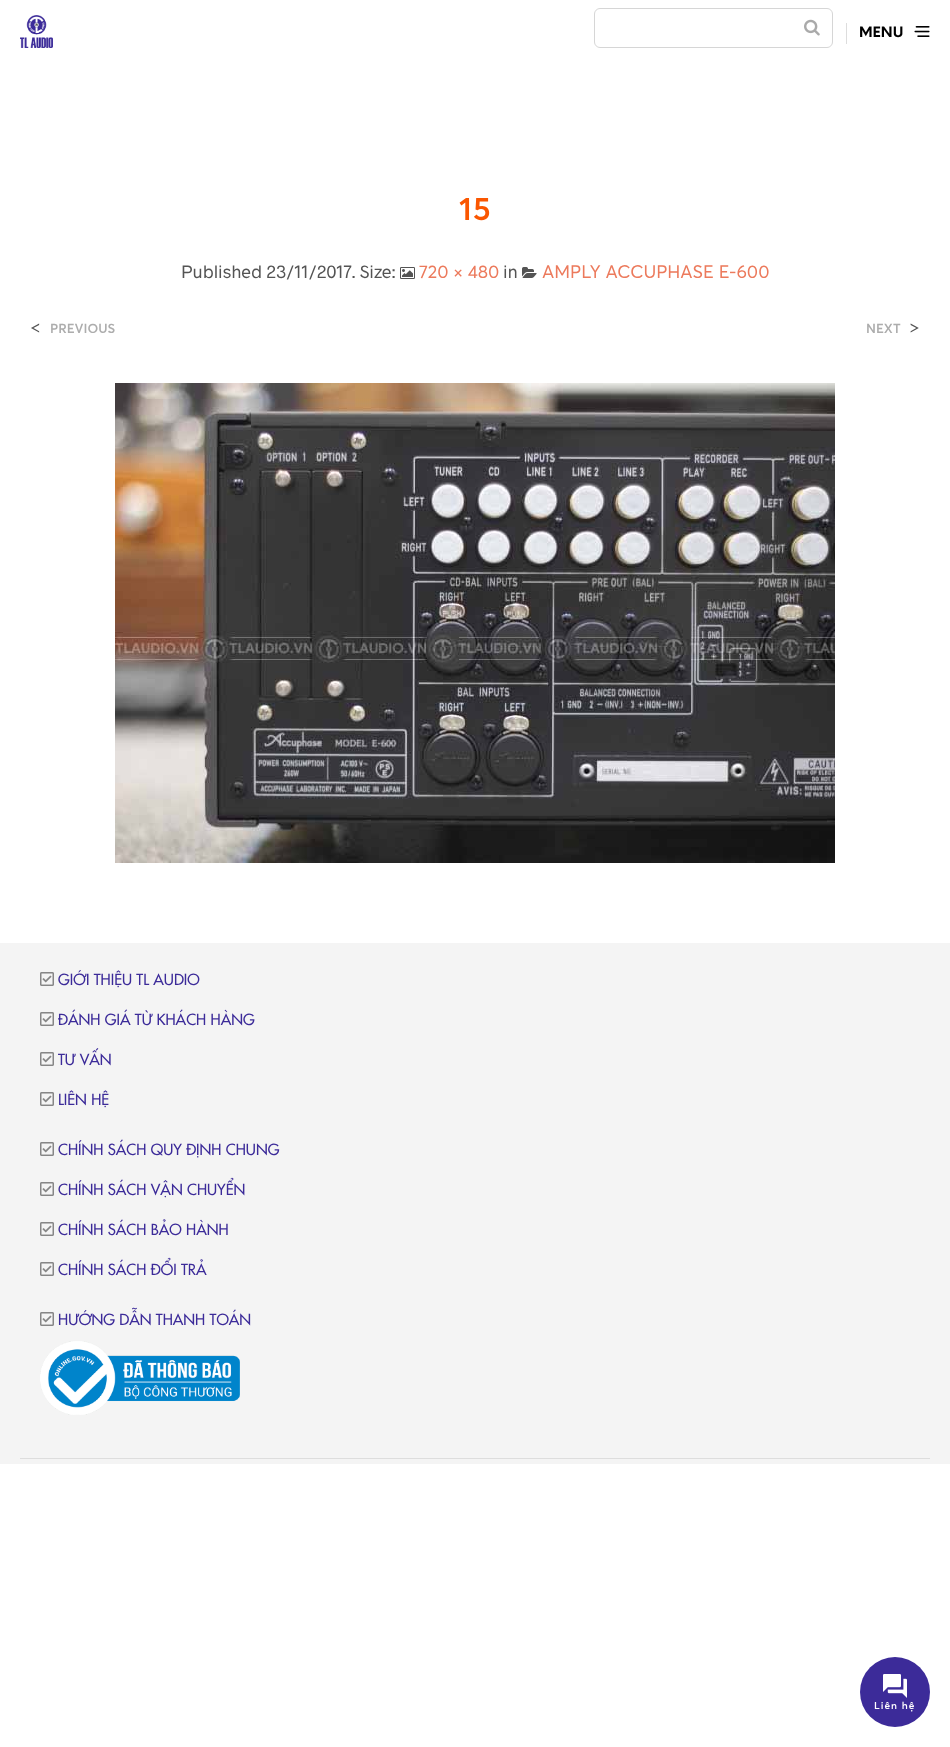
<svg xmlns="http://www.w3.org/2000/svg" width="950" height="1747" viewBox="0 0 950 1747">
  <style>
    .t1 { font: bold 14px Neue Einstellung; fill: #000; }
    .t2 { font: 600 32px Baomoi; letter-spacing: 1px; fill: #fa5600; }
    .t3 { font: 18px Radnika; fill: #545454; }
    .t4 { font: 18px Baomoi; fill: #ec7a5c; }
    .t5 { font: 600 13px Baomoi; fill: #adadad; }
    .t6 { font: 15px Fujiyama; fill: #3c2b99; }
    .t7 { font: 600 10px Baomoi; letter-spacing: 1px; fill: #fff; }
  </style>
  <rect width="100%" height="100%" fill="#fff"/>
  <image x="20" y="15" width="33" height="33" href="images/1.png"/>
  <rect x="594.5" y="8.5" width="238" height="39" rx="5.5" fill="none" stroke="#d6d6d6"/>
  <image x="804" y="19" width="16" height="17" href="images/2.png"/>
  <rect x="846" y="23" width="1" height="21" fill="#ddd"/>
  <text x="859" y="37" class="t1">MENU</text>
  <image x="914" y="26" width="16" height="11" href="images/3.png"/>
  <text x="459" y="220" class="t2">15</text>
  <text x="181" y="278" class="t3">Published 23/11/2017. Size:</text>
  <image x="400" y="267" width="15" height="12" href="images/4.png"/>
  <text x="419" y="278" class="t4">720 × 480</text>
  <text x="503" y="278" class="t3">in</text>
  <image x="522" y="267" width="15" height="11" href="images/5.png"/>
  <text x="542" y="278" class="t4">AMPLY ACCUPHASE E-600</text>
  <text x="30" y="334" class="t3">&lt;</text>
  <text x="50" y="333" class="t5">PREVIOUS</text>
  <text x="866" y="333" class="t5">NEXT</text>
  <text x="909" y="334" class="t3">&gt;</text>
  <image x="115" y="383" width="720" height="480" href="images/6.png"/>
  <rect x="0" y="943" width="950" height="521" fill="#f4f4f4"/>
  <rect x="20" y="1458" width="910" height="1" fill="#ddd"/>
  <image x="40" y="972" width="14" height="14" href="images/7.png"/>
  <text x="58" y="985" class="t6">GIỚI THIỆU TL AUDIO</text>
  <image x="40" y="1012" width="14" height="14" href="images/7.png"/>
  <text x="58" y="1025" class="t6">ĐÁNH GIÁ TỪ KHÁCH HÀNG</text>
  <image x="40" y="1052" width="14" height="14" href="images/7.png"/>
  <text x="58" y="1065" class="t6">TƯ VẤN</text>
  <image x="40" y="1092" width="14" height="14" href="images/7.png"/>
  <text x="58" y="1105" class="t6">LIÊN HỆ</text>
  <image x="40" y="1142" width="14" height="14" href="images/7.png"/>
  <text x="58" y="1155" class="t6">CHÍNH SÁCH QUY ĐỊNH CHUNG</text>
  <image x="40" y="1182" width="14" height="14" href="images/7.png"/>
  <text x="58" y="1195" class="t6">CHÍNH SÁCH VẬN CHUYỂN</text>
  <image x="40" y="1222" width="14" height="14" href="images/7.png"/>
  <text x="58" y="1235" class="t6">CHÍNH SÁCH BẢO HÀNH</text>
  <image x="40" y="1262" width="14" height="14" href="images/7.png"/>
  <text x="58" y="1275" class="t6">CHÍNH SÁCH ĐỔI TRẢ</text>
  <image x="40" y="1312" width="14" height="14" href="images/7.png"/>
  <text x="58" y="1325" class="t6">HƯỚNG DẪN THANH TOÁN</text>
  <image x="40" y="1341" width="200" height="74" href="images/8.png"/>
  <circle cx="895" cy="1692" r="35" fill="#3c2b99"/>
  <image x="883" y="1674" width="24" height="24" href="images/9.png"/>
  <text x="874" y="1709" class="t7">Liên hệ</text>
</svg>
